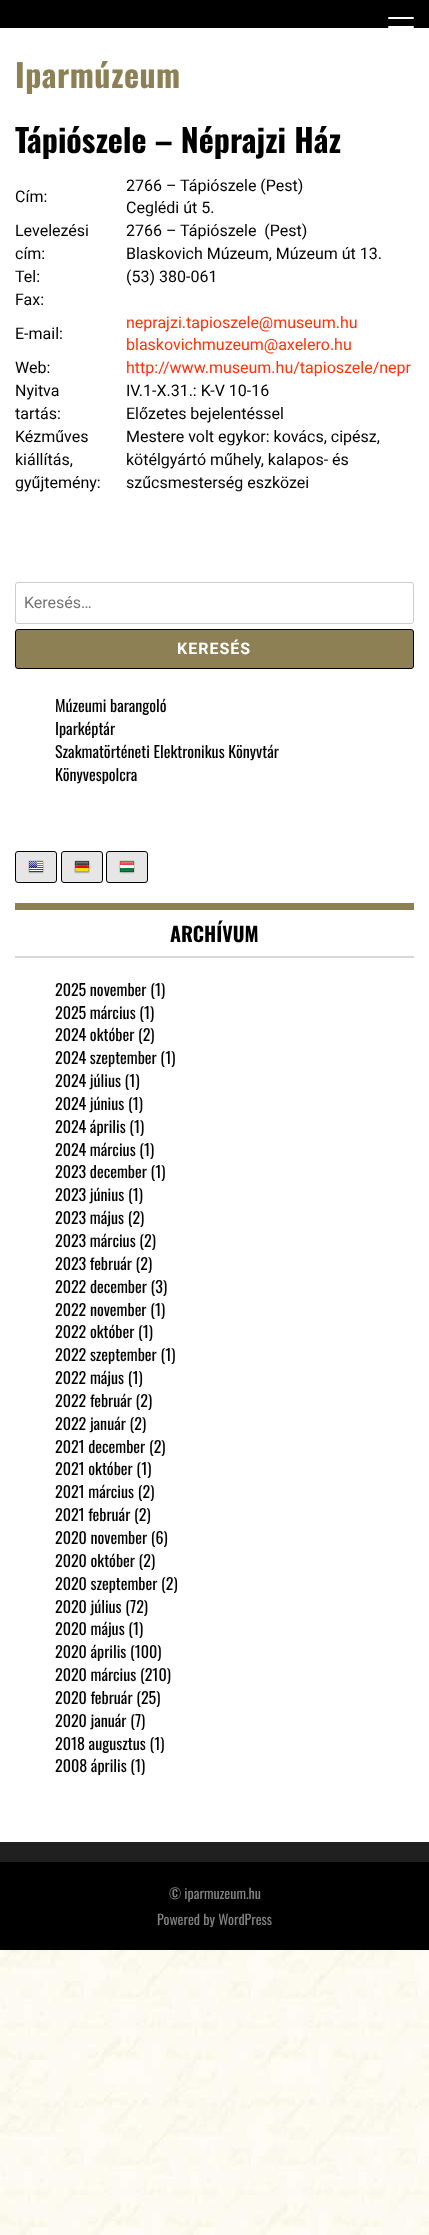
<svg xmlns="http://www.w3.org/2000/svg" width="429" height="2235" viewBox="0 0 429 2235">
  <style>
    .t1 { font: bold 32px Oswald; letter-spacing: 0.5px; fill: #8d8054; }
    .t2 { font: bold 32px Oswald; fill: #000; }
    .t3 { font: 16px Roboto; fill: #000; }
    .t4 { font: 16px Roboto; fill: #ff3209; }
    .t5 { font: 16px Roboto; fill: #757575; }
    .t6 { font: bold 16px Roboto; letter-spacing: 1px; fill: #fff; }
    .t7 { font: 16px Oswald; fill: #000; }
    .t8 { font: bold 20px Oswald; fill: #000; }
    .t9 { font: 14px Oswald; fill: #838383; }
  </style>
  <rect width="100%" height="100%" fill="#fff"/>
  <image x="0" y="1950" width="429" height="285" href="images/1.png"/>
  <rect x="0" y="0" width="429" height="28" fill="#000"/>
  <rect x="388" y="26" width="26" height="2" rx="1" fill="#fff"/>
  <rect x="388" y="17" width="26" height="2" rx="1" fill="#fff"/>
  <text x="15" y="88" class="t1">Iparmúzeum</text>
  <text x="15" y="153" class="t2">Tápiószele – Néprajzi Ház</text>
  <text x="15" y="202" class="t3">Cím:</text>
  <text x="126" y="191" class="t3">2766 – Tápiószele (Pest)</text>
  <text x="126" y="213" class="t3">Ceglédi út 5.</text>
  <text x="15" y="236" class="t3">Levelezési</text>
  <text x="15" y="259" class="t3">cím:</text>
  <text x="126" y="236" class="t3" xml:space="preserve">2766 – Tápiószele  (Pest)</text>
  <text x="126" y="259" class="t3">Blaskovich Múzeum, Múzeum út 13.</text>
  <text x="15" y="282" class="t3">Tel:</text>
  <text x="126" y="282" class="t3">(53) 380-061</text>
  <text x="15" y="305" class="t3">Fax:</text>
  <text x="15" y="339" class="t3">E-mail:</text>
  <text x="126" y="328" class="t4">neprajzi.tapioszele@museum.hu</text>
  <text x="126" y="350" class="t4">blaskovichmuzeum@axelero.hu</text>
  <text x="15" y="373" class="t3">Web:</text>
  <text x="126" y="373" class="t4">http://www.museum.hu/tapioszele/nepr</text>
  <text x="15" y="396" class="t3">Nyitva</text>
  <text x="15" y="419" class="t3">tartás:</text>
  <text x="126" y="396" class="t3">IV.1-X.31.: K-V 10-16</text>
  <text x="126" y="419" class="t3">Előzetes bejelentéssel</text>
  <text x="15" y="442" class="t3">Kézműves</text>
  <text x="15" y="465" class="t3">kiállítás,</text>
  <text x="15" y="488" class="t3">gyűjtemény:</text>
  <text x="126" y="442" class="t3">Mestere volt egykor: kovács, cipész,</text>
  <text x="126" y="465" class="t3">kötélgyártó műhely, kalapos- és</text>
  <text x="126" y="488" class="t3">szűcsmesterség eszközei</text>
  <rect x="15.5" y="582.5" width="398" height="41" rx="2.5" fill="none" stroke="#ccc"/>
  <text x="24" y="608" class="t5">Keresés…</text>
  <rect x="15.5" y="629.5" width="398" height="39" rx="2.5" fill="#8d8054" stroke="#000"/>
  <text x="177" y="654" class="t6">KERESÉS</text>
  <text x="55" y="712" class="t7">Múzeumi barangoló</text>
  <text x="55" y="735" class="t7">Iparképtár</text>
  <text x="55" y="758" class="t7">Szakmatörténeti Elektronikus Könyvtár</text>
  <text x="55" y="781" class="t7">Könyvespolcra</text>
  <rect x="15.5" y="851.5" width="41" height="31" rx="2.5" fill="#e6e6e6" stroke="#000"/>
  <image x="28" y="860" width="16" height="14" href="images/2.png"/>
  <rect x="61.5" y="851.5" width="41" height="31" rx="2.5" fill="#e6e6e6" stroke="#000"/>
  <image x="74" y="860" width="16" height="14" href="images/3.png"/>
  <rect x="106.5" y="851.5" width="41" height="31" rx="2.5" fill="#e6e6e6" stroke="#000"/>
  <image x="119" y="860" width="16" height="14" href="images/4.png"/>
  <rect x="15" y="903" width="399" height="7" fill="#8d8054"/>
  <rect x="15" y="956" width="399" height="2" fill="#d7d7d7"/>
  <text x="170" y="942" class="t8">ARCHÍVUM</text>
  <text x="55" y="996" class="t7">2025 november (1)</text>
  <text x="55" y="1019" class="t7">2025 március (1)</text>
  <text x="55" y="1041" class="t7">2024 október (2)</text>
  <text x="55" y="1064" class="t7">2024 szeptember (1)</text>
  <text x="55" y="1087" class="t7">2024 július (1)</text>
  <text x="55" y="1110" class="t7">2024 június (1)</text>
  <text x="55" y="1133" class="t7">2024 április (1)</text>
  <text x="55" y="1156" class="t7">2024 március (1)</text>
  <text x="55" y="1178" class="t7">2023 december (1)</text>
  <text x="55" y="1201" class="t7">2023 június (1)</text>
  <text x="55" y="1224" class="t7">2023 május (2)</text>
  <text x="55" y="1247" class="t7">2023 március (2)</text>
  <text x="55" y="1270" class="t7">2023 február (2)</text>
  <text x="55" y="1293" class="t7">2022 december (3)</text>
  <text x="55" y="1316" class="t7">2022 november (1)</text>
  <text x="55" y="1338" class="t7">2022 október (1)</text>
  <text x="55" y="1361" class="t7">2022 szeptember (1)</text>
  <text x="55" y="1384" class="t7">2022 május (1)</text>
  <text x="55" y="1407" class="t7">2022 február (2)</text>
  <text x="55" y="1430" class="t7">2022 január (2)</text>
  <text x="55" y="1453" class="t7">2021 december (2)</text>
  <text x="55" y="1475" class="t7">2021 október (1)</text>
  <text x="55" y="1498" class="t7">2021 március (2)</text>
  <text x="55" y="1521" class="t7">2021 február (2)</text>
  <text x="55" y="1544" class="t7">2020 november (6)</text>
  <text x="55" y="1567" class="t7">2020 október (2)</text>
  <text x="55" y="1590" class="t7">2020 szeptember (2)</text>
  <text x="55" y="1613" class="t7">2020 július (72)</text>
  <text x="55" y="1635" class="t7">2020 május (1)</text>
  <text x="55" y="1658" class="t7">2020 április (100)</text>
  <text x="55" y="1681" class="t7">2020 március (210)</text>
  <text x="55" y="1704" class="t7">2020 február (25)</text>
  <text x="55" y="1727" class="t7">2020 január (7)</text>
  <text x="55" y="1750" class="t7">2018 augusztus (1)</text>
  <text x="55" y="1772" class="t7">2008 április (1)</text>
  <rect x="0" y="1842" width="429" height="20" fill="#202020"/>
  <rect x="0" y="1862" width="429" height="88" fill="#000"/>
  <text x="169" y="1899" class="t9">© iparmuzeum.hu</text>
  <text x="157" y="1925" class="t9">Powered by WordPress</text>
</svg>
